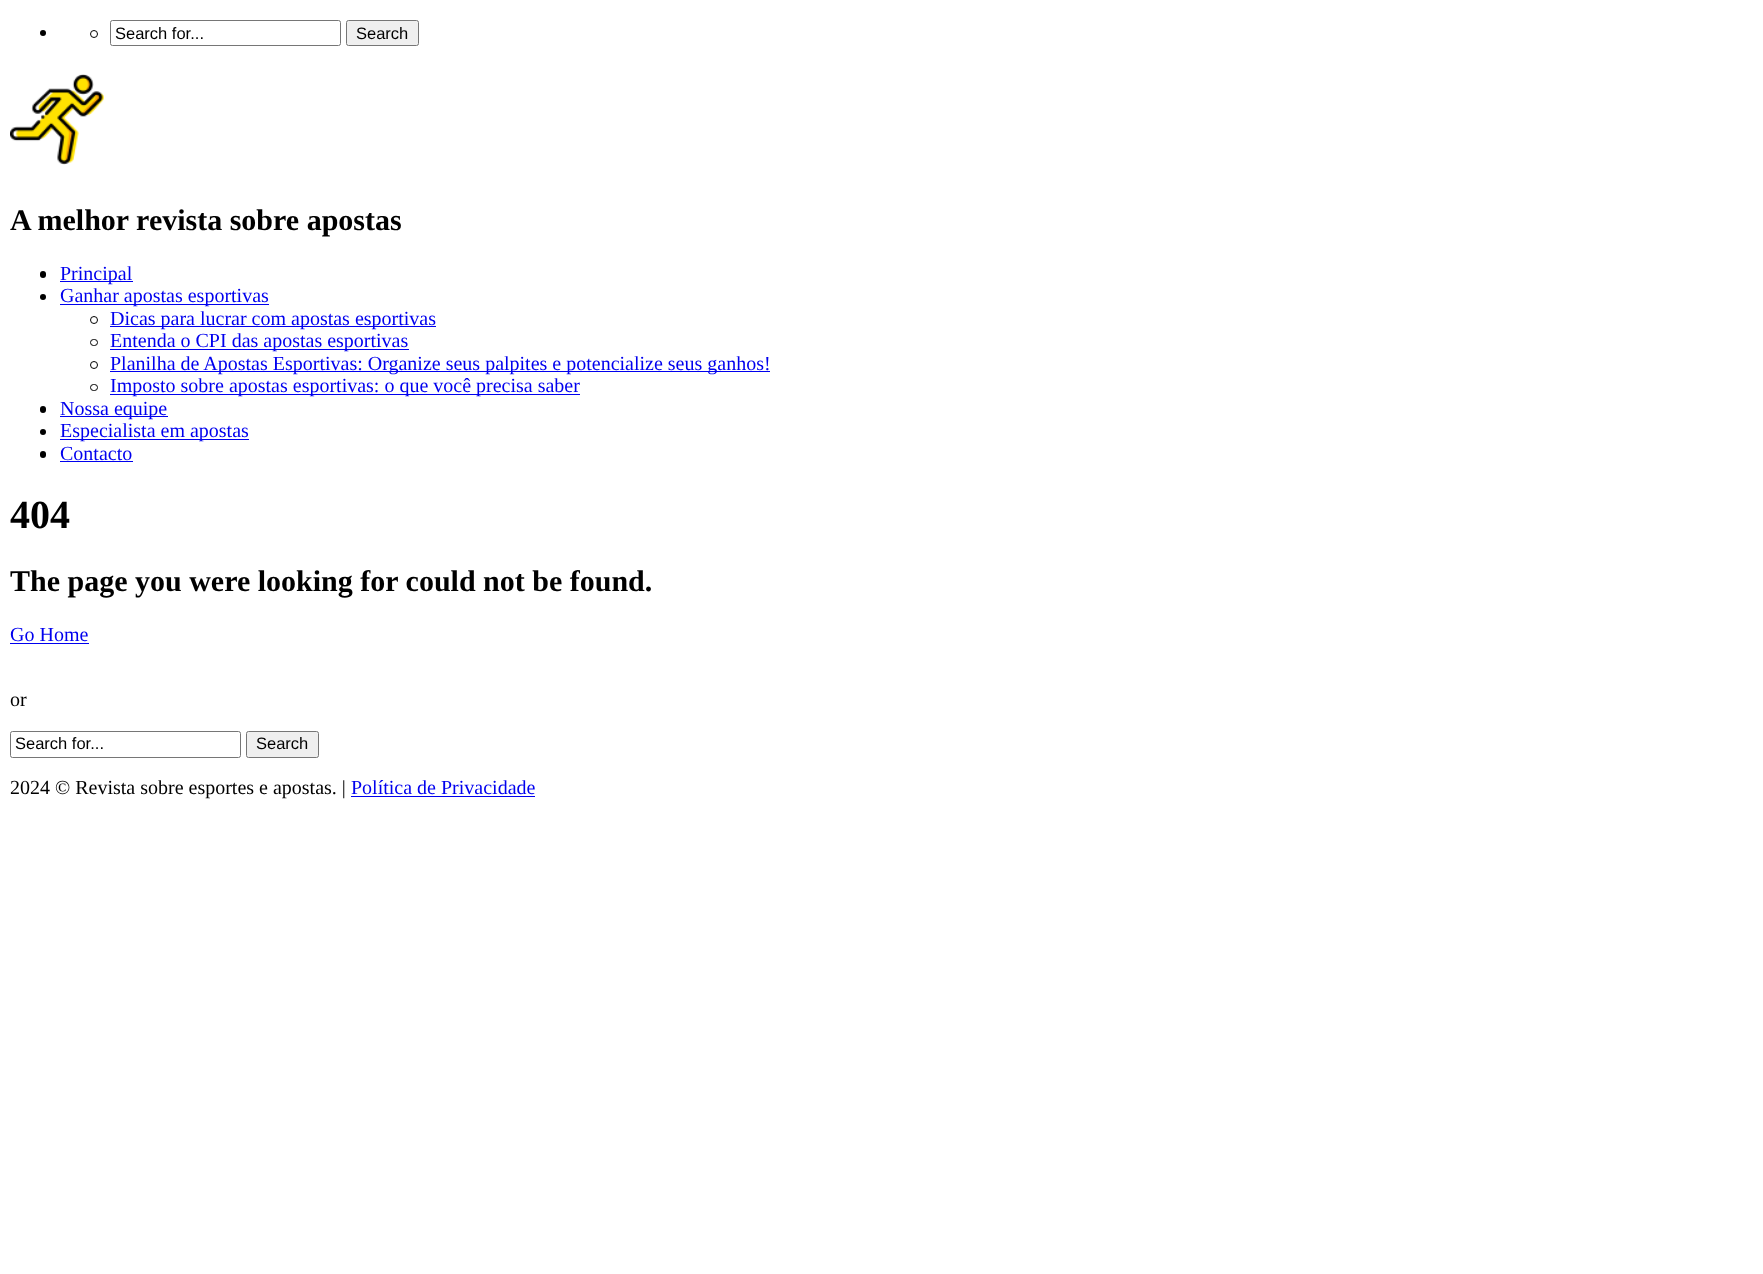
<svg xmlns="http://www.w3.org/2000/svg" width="1763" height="1274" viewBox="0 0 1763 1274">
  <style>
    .t1 { font: 16.5px Liberation Sans; fill: #000; }
    .t2 { font: bold 30px Liberation Serif; fill: #000; }
    .t3 { font: 20px Liberation Serif; fill: #00e; }
    .t4 { font: bold 40px Liberation Serif; fill: #000; }
    .t5 { font: 20px Liberation Serif; fill: #000; }
  </style>
  <rect width="100%" height="100%" fill="#fff"/>
  <circle cx="43" cy="33" r="3" fill="#000"/>
  <circle cx="94" cy="34" r="3.5" fill="none" stroke="#000"/>
  <rect x="110.5" y="20.5" width="230" height="25" rx="2" fill="none" stroke="#767676"/>
  <text x="115" y="39" class="t1">Search for...</text>
  <rect x="346.5" y="20.5" width="72" height="25" rx="2" fill="#efefef" stroke="#767676"/>
  <text x="356" y="39" class="t1">Search</text>
  <image x="10" y="74" width="94" height="91" href="images/1.png"/>
  <text x="10" y="230" class="t2">A melhor revista sobre apostas</text>
  <rect x="40" y="271" width="6" height="7" rx="3" fill="#000"/>
  <rect x="60" y="281" width="73" height="1" fill="#00e"/>
  <text x="60" y="280" class="t3">Principal</text>
  <circle cx="43" cy="297" r="3" fill="#000"/>
  <rect x="60" y="304" width="209" height="1" fill="#00e"/>
  <text x="60" y="302" class="t3">Ganhar apostas esportivas</text>
  <circle cx="94" cy="320" r="3.5" fill="none" stroke="#000"/>
  <rect x="110" y="326" width="326" height="1" fill="#00e"/>
  <text x="110" y="325" class="t3">Dicas para lucrar com apostas esportivas</text>
  <rect x="90.5" y="339.5" width="7" height="6" rx="3" fill="none" stroke="#000"/>
  <rect x="110" y="349" width="299" height="1" fill="#00e"/>
  <text x="110" y="347" class="t3">Entenda o CPI das apostas esportivas</text>
  <circle cx="94" cy="365" r="3.5" fill="none" stroke="#000"/>
  <rect x="110" y="371" width="660" height="1" fill="#00e"/>
  <text x="110" y="370" class="t3">Planilha de Apostas Esportivas: Organize seus palpites e potencialize seus ganhos!</text>
  <rect x="90.5" y="384.5" width="7" height="6" rx="3" fill="none" stroke="#000"/>
  <rect x="110" y="394" width="470" height="1" fill="#00e"/>
  <text x="110" y="392" class="t3">Imposto sobre apostas esportivas: o que você precisa saber</text>
  <rect x="40" y="406" width="6" height="7" rx="3" fill="#000"/>
  <rect x="60" y="416" width="108" height="1" fill="#00e"/>
  <text x="60" y="415" class="t3">Nossa equipe</text>
  <circle cx="43" cy="432" r="3" fill="#000"/>
  <rect x="60" y="439" width="189" height="1" fill="#00e"/>
  <text x="60" y="437" class="t3">Especialista em apostas</text>
  <rect x="40" y="451" width="6" height="7" rx="3" fill="#000"/>
  <text x="60" y="460" class="t3">Contacto</text>
  <rect x="60" y="461" width="73" height="1" fill="#00e"/>
  <text x="10" y="528" class="t4">404</text>
  <text x="10" y="591" class="t2">The page you were looking for could not be found.</text>
  <text x="10" y="641" class="t3">Go Home</text>
  <rect x="10" y="643" width="79" height="1" fill="#00e"/>
  <text x="10" y="706" class="t5">or</text>
  <rect x="10.5" y="731.5" width="230" height="26" rx="2" fill="none" stroke="#767676"/>
  <text x="15" y="749" class="t1">Search for...</text>
  <rect x="246.5" y="731.5" width="72" height="26" rx="2" fill="#efefef" stroke="#767676"/>
  <text x="256" y="749" class="t1">Search</text>
  <text x="10" y="794" class="t5">2024 © Revista sobre esportes e apostas. |</text>
  <text x="351" y="794" class="t3">Política de Privacidade</text>
  <rect x="351" y="796" width="184" height="1" fill="#00e"/>
</svg>
